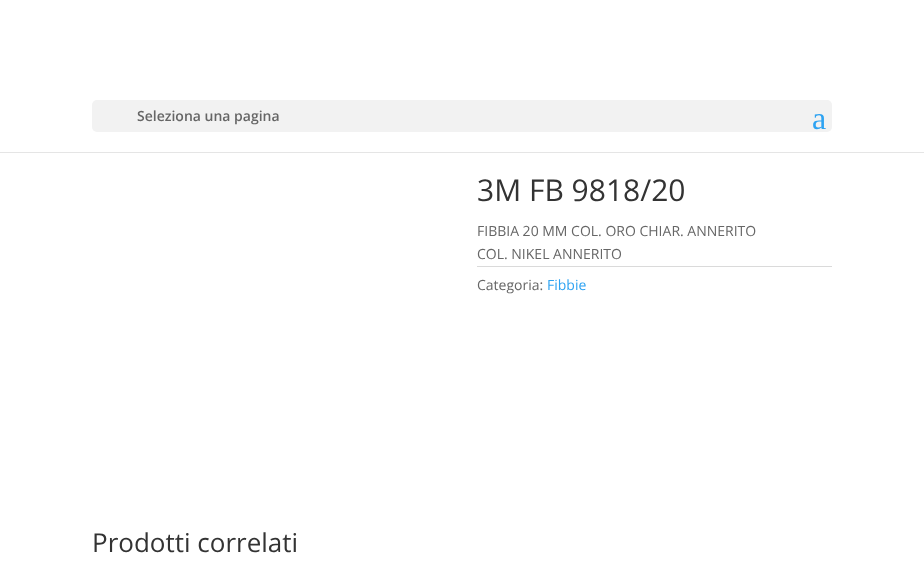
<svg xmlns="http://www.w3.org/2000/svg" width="924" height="579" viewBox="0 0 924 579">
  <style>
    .t1 { font: 600 14px Open Sans; fill: #666; }
    .t2 { font: 32px Liberation Serif; fill: #2ea3f2; }
    .t3 { font: 30px Open Sans; fill: #333; }
    .t4 { font: 14px Open Sans; fill: #666; }
    .t5 { font: 14px Open Sans; fill: #2ea3f2; }
    .t6 { font: 26px Open Sans; fill: #333; }
  </style>
  <rect width="100%" height="100%" fill="#fff"/>
  <rect x="0" y="152" width="924" height="1" fill="#0000001a"/>
  <rect x="92" y="100" width="740" height="32" rx="5" fill="#f2f2f2"/>
  <text x="137" y="121" class="t1">Seleziona una pagina</text>
  <text x="812" y="129" class="t2">a</text>
  <text x="477" y="201" class="t3">3M FB 9818/20</text>
  <text x="477" y="236" class="t4">FIBBIA 20 MM COL. ORO CHIAR. ANNERITO</text>
  <text x="477" y="259" class="t4">COL. NIKEL ANNERITO</text>
  <rect x="477" y="266" width="355" height="1" fill="#dadada"/>
  <text x="477" y="290" class="t4">Categoria:</text>
  <text x="547" y="290" class="t5">Fibbie</text>
  <text x="92" y="552" class="t6">Prodotti correlati</text>
</svg>
